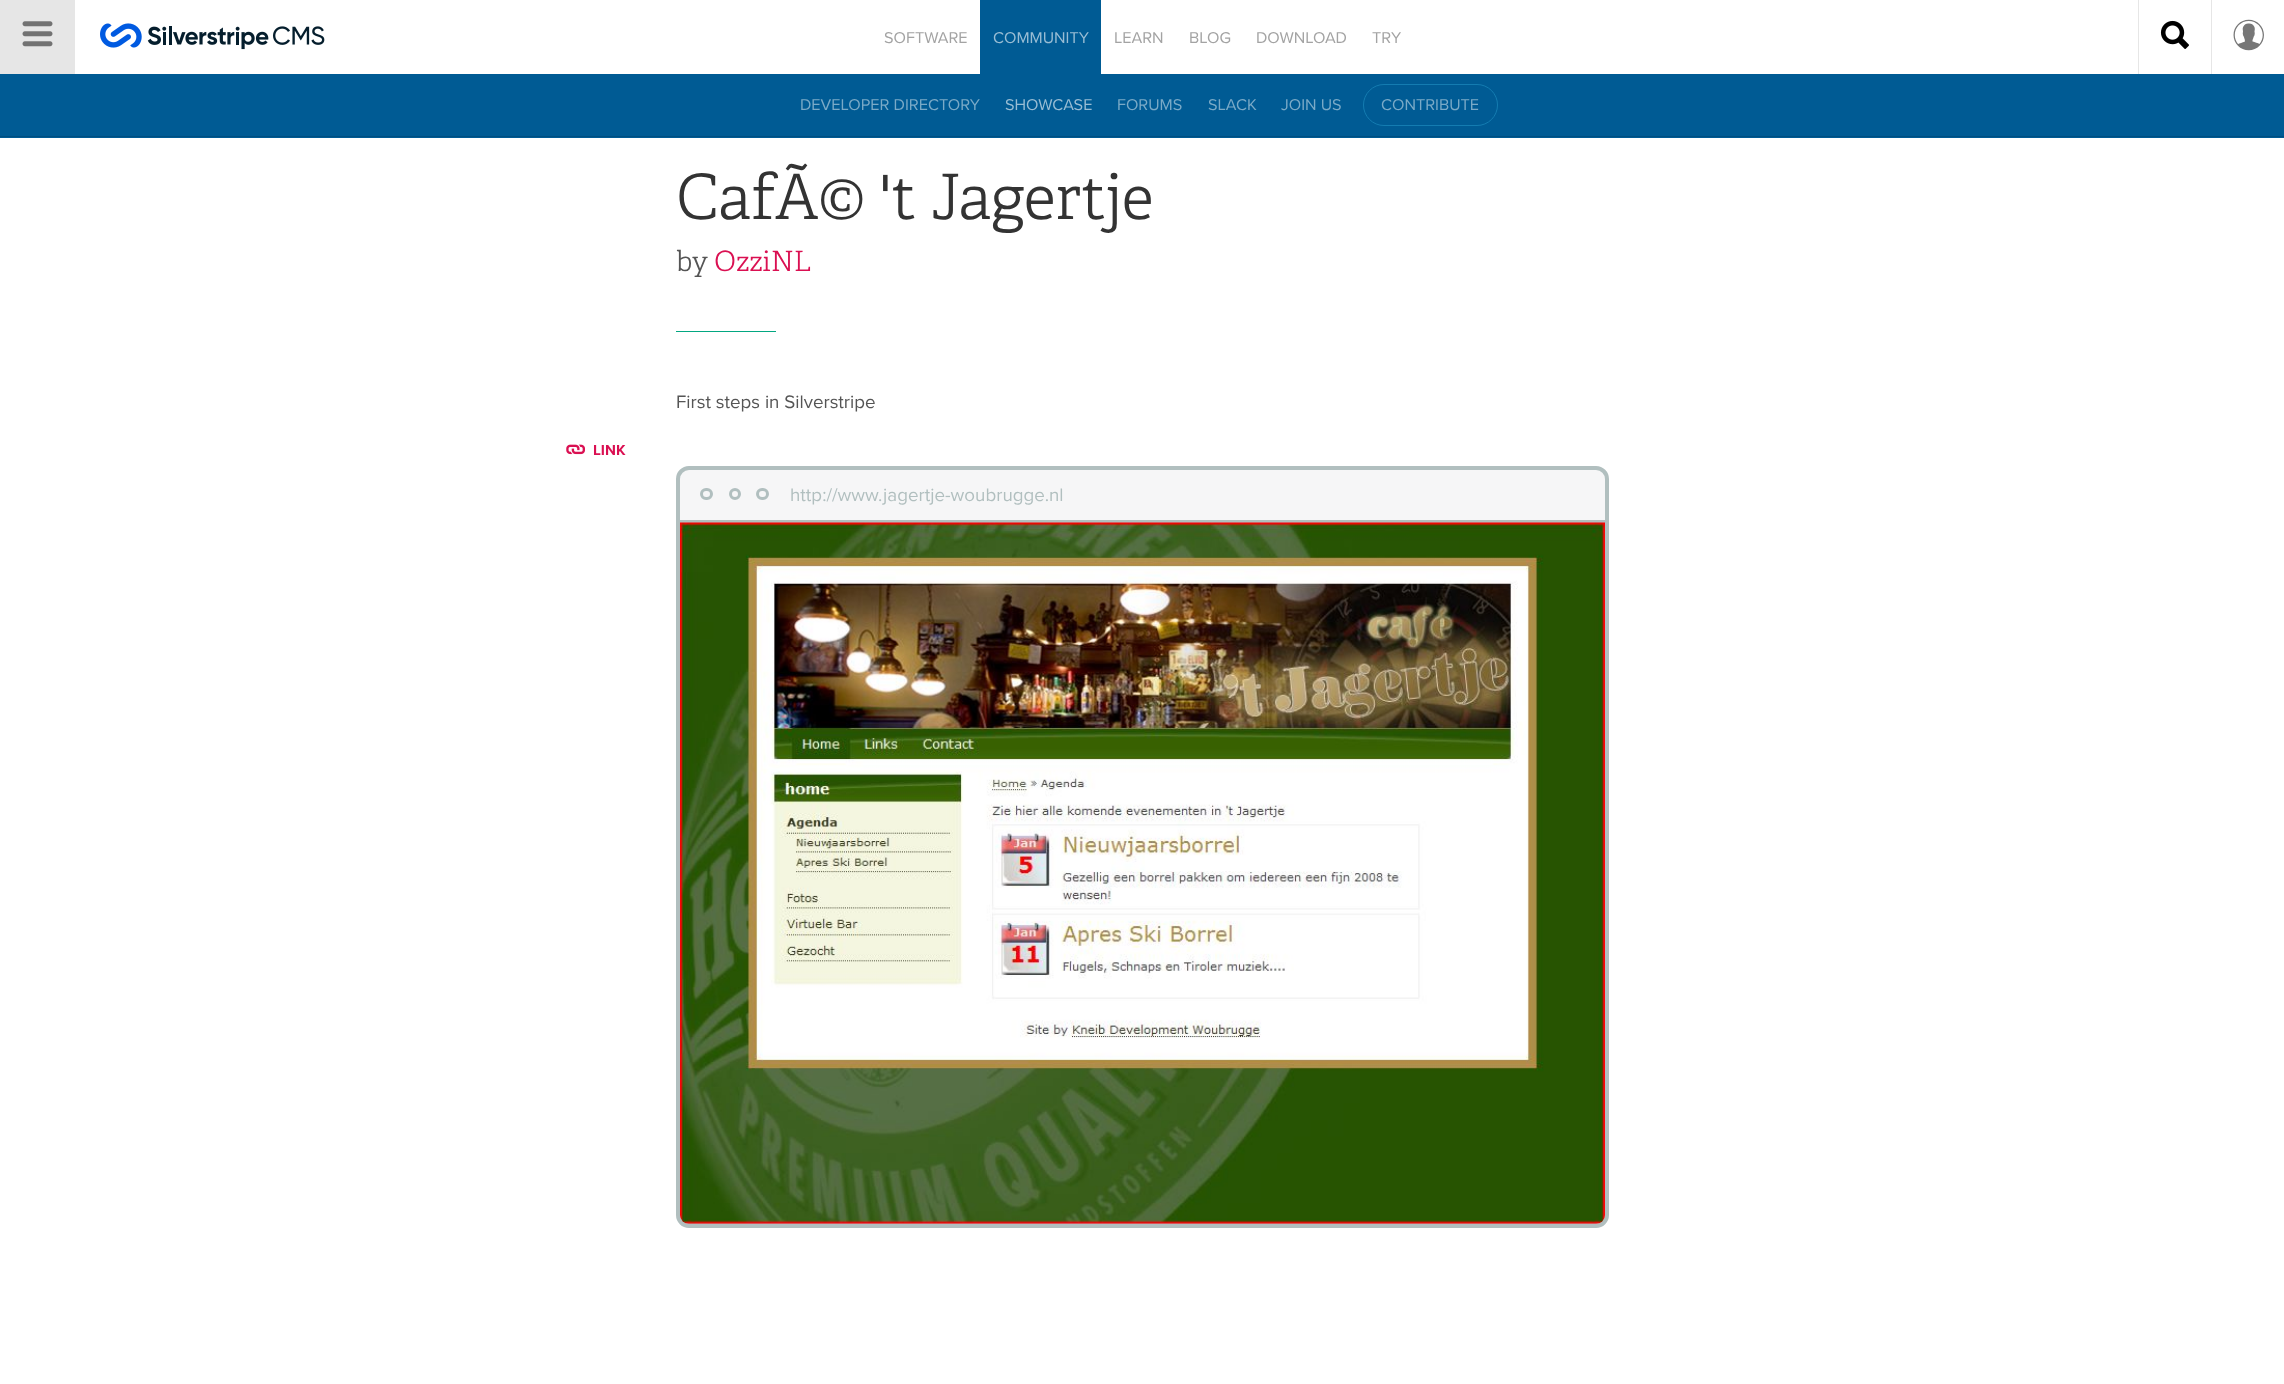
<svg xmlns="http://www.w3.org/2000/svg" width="2284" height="1384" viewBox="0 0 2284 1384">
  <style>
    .t1 { font: 16.25px Proxima Nova; fill: #99bdd4; }
    .t2 { font: 16.25px Proxima Nova; fill: #7aaac7; }
    .t3 { font: 16.25px Proxima Nova; fill: #a3a3a3; }
    .t4 { font: 300 62.5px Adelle; letter-spacing: -0.4px; fill: #333; }
    .t5 { font: 300 28px Adelle; fill: #555; }
    .t6 { font: 300 28px Adelle; fill: #da1052; }
    .t7 { font: bold 15px Proxima Nova; fill: #da1052; }
    .t8 { font: 18.75px Proxima Nova; fill: #555; }
    .t9 { font: 18.75px Proxima Nova; fill: #b1bfbf; }
  </style>
  <rect width="100%" height="100%" fill="#fff"/>
  <rect x="0" y="0" width="75" height="74" fill="#e6e6e6"/>
  <image x="22" y="21" width="31" height="26" href="images/1.png"/>
  <image x="100" y="23" width="225" height="27" href="images/2.png"/>
  <rect x="980" y="0" width="121" height="74" fill="#005b94"/>
  <text x="993" y="43" class="t1">COMMUNITY</text>
  <rect x="2138" y="0" width="1" height="75" fill="#e6e6e6"/>
  <rect x="2211" y="0" width="1" height="75" fill="#e6e6e6"/>
  <rect x="0" y="74" width="2284" height="64" fill="#005b94"/>
  <rect x="0" y="136" width="2284" height="1" fill="#004e80"/>
  <text x="800" y="110" class="t2">DEVELOPER DIRECTORY</text>
  <text x="1005" y="110" class="t1">SHOWCASE</text>
  <text x="1117" y="110" class="t2">FORUMS</text>
  <text x="1208" y="110" class="t2">SLACK</text>
  <text x="1281" y="110" class="t2">JOIN US</text>
  <rect x="1363.5" y="84.5" width="134" height="41" rx="20.5" fill="none" stroke="#147cb1"/>
  <text x="1381" y="110" class="t2">CONTRIBUTE</text>
  <text x="884" y="43" class="t3">SOFTWARE</text>
  <text x="1114" y="43" class="t3">LEARN</text>
  <text x="1189" y="43" class="t3">BLOG</text>
  <text x="1256" y="43" class="t3">DOWNLOAD</text>
  <text x="1372" y="43" class="t3">TRY</text>
  <image x="2160" y="20" width="29" height="29" href="images/3.png"/>
  <image x="2233" y="19" width="31" height="32" href="images/4.png"/>
  <text x="676" y="219" class="t4">CafÃ© 't Jagertje</text>
  <text x="676" y="271" class="t5">by</text>
  <text x="714" y="271" class="t6">OzziNL</text>
  <rect x="676" y="331" width="100" height="1" fill="#02a781"/>
  <image x="566" y="444" width="19" height="11" href="images/5.png"/>
  <text x="593" y="455" class="t7">LINK</text>
  <text x="676" y="408" class="t8">First steps in Silverstripe</text>
  <rect x="678" y="468" width="929" height="758" rx="11" fill="#f6f6f7" stroke="#b1bfbf" stroke-width="4"/>
  <rect x="701.5" y="489.5" width="10" height="9" rx="4.5" fill="none" stroke="#b1bfbf" stroke-width="3"/>
  <rect x="680" y="520" width="925" height="3" fill="#b1bfbf"/>
  <circle cx="735" cy="494" r="4.5" fill="none" stroke="#b1bfbf" stroke-width="3"/>
  <rect x="757.5" y="489.5" width="10" height="9" rx="4.5" fill="none" stroke="#b1bfbf" stroke-width="3"/>
  <text x="790" y="501" class="t9">http://www.jagertje-woubrugge.nl</text>
  <path d="M680 523H1605V1215C1605 1220 1601 1224 1596 1224H689C684 1224 680 1220 680 1215Z" fill="#b1bfbf"/>
  <image x="680" y="522" width="925" height="702" href="images/6.png"/>
</svg>
